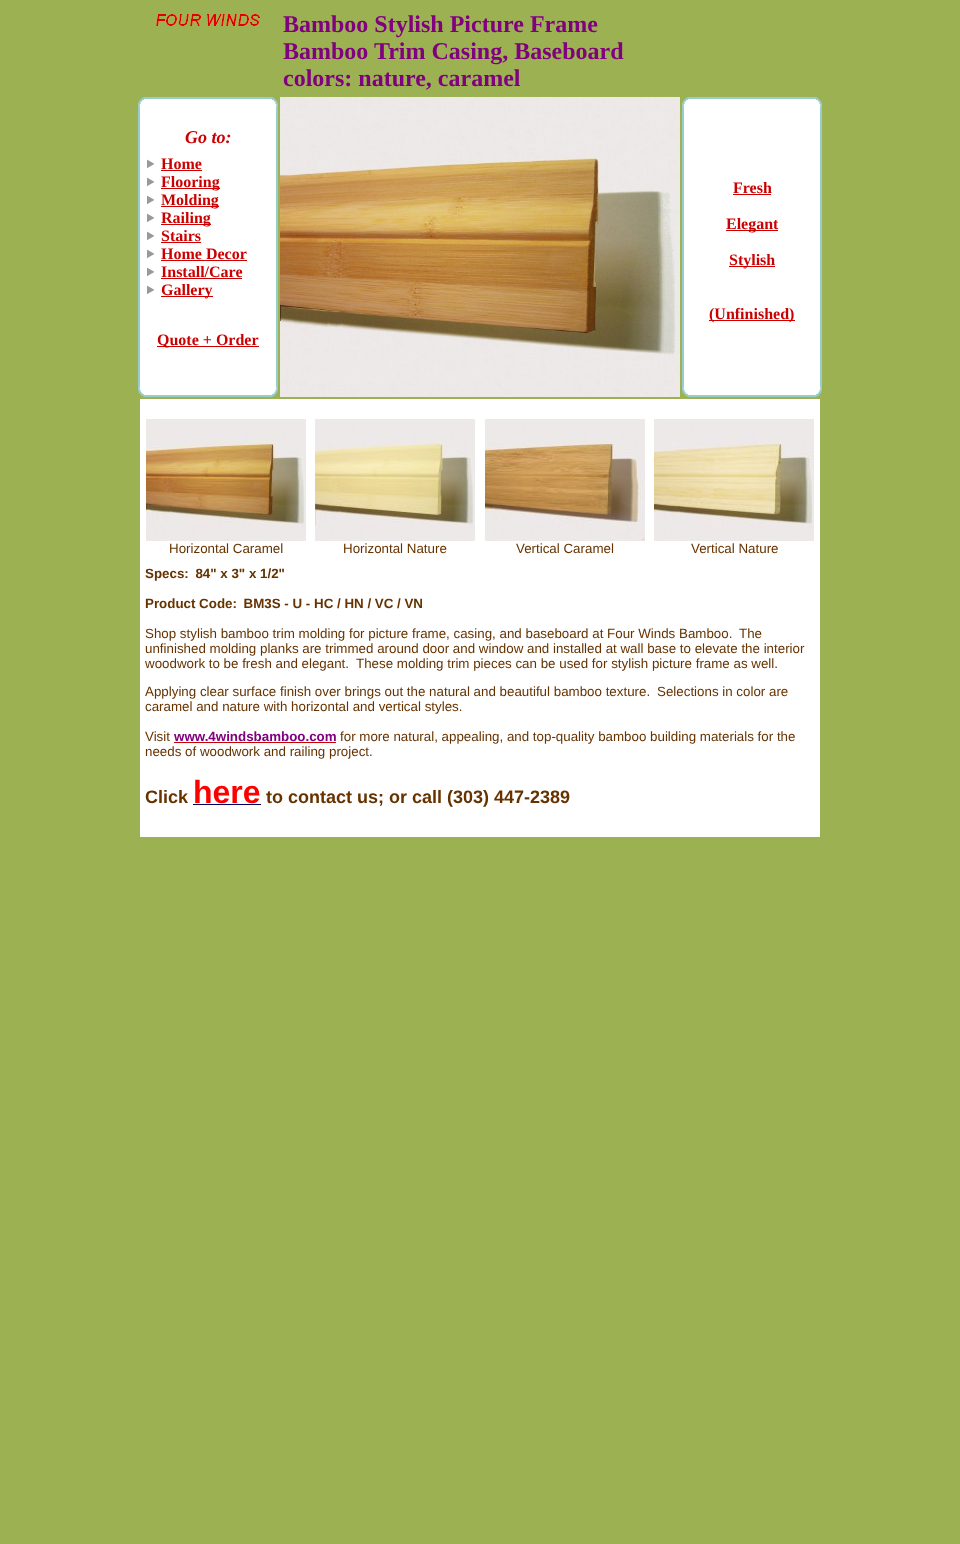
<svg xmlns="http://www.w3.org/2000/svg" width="960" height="1544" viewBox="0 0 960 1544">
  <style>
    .t1 { font: bold 24px Liberation Serif; fill: #800080; }
    .t2 { font: italic bold 18px Liberation Serif; fill: #cb0000; }
    .t3 { font: bold 16px Liberation Serif; fill: #cb0000; }
    .t4 { font: 13.35px Liberation Sans; fill: #630; }
    .t5 { font: bold 13.35px Liberation Sans; fill: #630; }
    .t6 { font: bold 13.35px Liberation Sans; fill: #800080; }
    .t7 { font: bold 18px Liberation Sans; fill: #630; }
    .t8 { font: bold 32px Liberation Sans; fill: #f00; }
  </style>
  <rect width="100%" height="100%" fill="#9cb252"/>
  <image x="156" y="14" width="104" height="12" href="images/1.png"/>
  <text x="283" y="32" class="t1">Bamboo Stylish Picture Frame</text>
  <text x="283" y="59" class="t1">Bamboo Trim Casing, Baseboard</text>
  <text x="283" y="86" class="t1">colors: nature, caramel</text>
  <image x="138" y="97" width="140" height="10" href="images/2.png"/>
  <rect x="138" y="107" width="2" height="280" fill="#9cc"/>
  <rect x="140" y="107" width="136" height="280" fill="#fff"/>
  <text x="185" y="143" class="t2">Go to:</text>
  <image x="147" y="159" width="8" height="10" href="images/3.png"/>
  <text x="161" y="169" class="t3">Home</text>
  <rect x="161" y="170" width="41" height="1" fill="#cb0000"/>
  <image x="147" y="177" width="8" height="10" href="images/3.png"/>
  <rect x="161" y="188" width="59" height="1" fill="#cb0000"/>
  <text x="161" y="187" class="t3">Flooring</text>
  <image x="147" y="195" width="8" height="10" href="images/3.png"/>
  <rect x="161" y="206" width="58" height="1" fill="#cb0000"/>
  <text x="161" y="205" class="t3">Molding</text>
  <image x="147" y="213" width="8" height="10" href="images/3.png"/>
  <rect x="161" y="224" width="50" height="1" fill="#cb0000"/>
  <text x="161" y="223" class="t3">Railing</text>
  <image x="147" y="231" width="8" height="10" href="images/3.png"/>
  <text x="161" y="241" class="t3">Stairs</text>
  <rect x="161" y="242" width="40" height="1" fill="#cb0000"/>
  <image x="147" y="249" width="8" height="10" href="images/3.png"/>
  <text x="161" y="259" class="t3">Home Decor</text>
  <rect x="161" y="260" width="86" height="1" fill="#cb0000"/>
  <image x="147" y="267" width="8" height="10" href="images/3.png"/>
  <text x="161" y="277" class="t3">Install/Care</text>
  <rect x="161" y="278" width="81" height="1" fill="#cb0000"/>
  <image x="147" y="285" width="8" height="10" href="images/3.png"/>
  <rect x="161" y="296" width="52" height="1" fill="#cb0000"/>
  <text x="161" y="295" class="t3">Gallery</text>
  <rect x="157" y="346" width="102" height="1" fill="#cb0000"/>
  <text x="157" y="345" class="t3">Quote + Order</text>
  <rect x="276" y="107" width="2" height="280" fill="#9cc"/>
  <image x="138" y="387" width="140" height="10" href="images/4.png"/>
  <image x="280" y="97" width="400" height="300" href="images/5.png"/>
  <image x="682" y="97" width="140" height="10" href="images/2.png"/>
  <rect x="682" y="107" width="2" height="280" fill="#9cc"/>
  <rect x="684" y="107" width="136" height="280" fill="#fff"/>
  <text x="733" y="193" class="t3">Fresh</text>
  <rect x="733" y="194" width="38" height="1" fill="#cb0000"/>
  <rect x="726" y="230" width="52" height="1" fill="#cb0000"/>
  <text x="726" y="229" class="t3">Elegant</text>
  <rect x="729" y="266" width="46" height="1" fill="#cb0000"/>
  <text x="729" y="265" class="t3">Stylish</text>
  <rect x="709" y="320" width="86" height="1" fill="#cb0000"/>
  <text x="709" y="319" class="t3">(Unfinished)</text>
  <rect x="820" y="107" width="2" height="280" fill="#9cc"/>
  <image x="682" y="387" width="140" height="10" href="images/4.png"/>
  <rect x="140" y="399" width="680" height="438" fill="#fff"/>
  <image x="146" y="419" width="160" height="122" href="images/6.png"/>
  <text x="169" y="553" class="t4">Horizontal Caramel</text>
  <image x="315" y="419" width="160" height="122" href="images/7.png"/>
  <text x="343" y="553" class="t4">Horizontal Nature</text>
  <image x="485" y="419" width="160" height="122" href="images/8.png"/>
  <text x="516" y="553" class="t4">Vertical Caramel</text>
  <image x="654" y="419" width="160" height="122" href="images/9.png"/>
  <text x="691" y="553" class="t4">Vertical Nature</text>
  <text x="145" y="578" class="t5">Specs: 84" x 3" x 1/2"</text>
  <text x="145" y="608" class="t5">Product Code: BM3S - U - HC / HN / VC / VN</text>
  <text x="145" y="638" class="t4">Shop stylish bamboo trim molding for picture frame, casing, and baseboard at Four Winds Bamboo.</text>
  <text x="739" y="638" class="t4">The</text>
  <text x="145" y="653" class="t4">unfinished molding planks are trimmed around door and window and installed at wall base to elevate the interior</text>
  <text x="145" y="668" class="t4">woodwork to be fresh and elegant.</text>
  <text x="356" y="668" class="t4">These molding trim pieces can be used for stylish picture frame as well.</text>
  <text x="145" y="696" class="t4">Applying clear surface finish over brings out the natural and beautiful bamboo texture.</text>
  <text x="657" y="696" class="t4">Selections in color are</text>
  <text x="145" y="711" class="t4">caramel and nature with horizontal and vertical styles.</text>
  <text x="145" y="741" class="t4">Visit</text>
  <text x="174" y="741" class="t6">www.4windsbamboo.com</text>
  <rect x="174" y="742" width="162" height="1" fill="#cb0000"/>
  <text x="340" y="741" class="t4">for more natural, appealing, and top-quality bamboo building materials for the</text>
  <text x="145" y="756" class="t4">needs of woodwork and railing project.</text>
  <text x="145" y="803" class="t7">Click</text>
  <text x="193" y="803" class="t8">here</text>
  <text x="266" y="803" class="t7">to contact us; or call (303) 447-2389</text>
  <rect x="193" y="804" width="68" height="1" fill="#006"/>
</svg>
